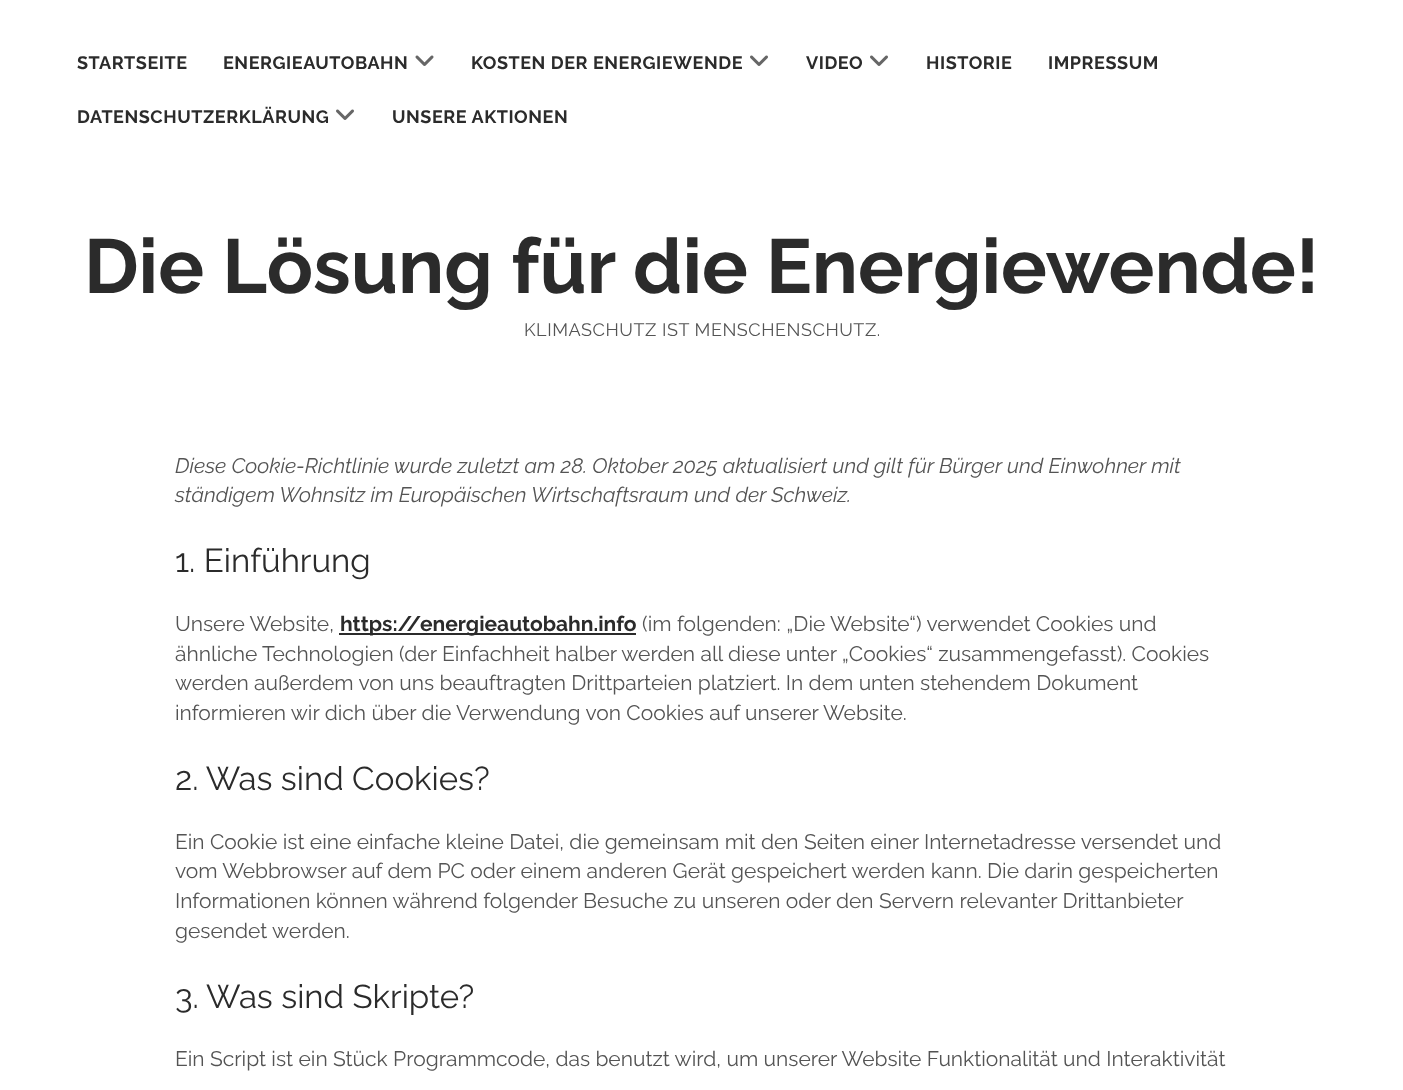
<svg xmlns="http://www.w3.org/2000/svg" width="1403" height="1090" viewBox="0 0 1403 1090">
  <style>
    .t1 { font: bold 18px Raleway; letter-spacing: 0.55px; fill: #2b2b2b; }
    .t2 { font: bold 76.5px Raleway; fill: #2b2b2b; }
    .t3 { font: 18px Raleway; letter-spacing: 0.55px; fill: #545454; }
    .t4 { font: italic 21px Raleway; fill: #545454; }
    .t5 { font: 33px Raleway; fill: #2b2b2b; }
    .t6 { font: 21px Raleway; fill: #545454; }
    .t7 { font: bold 21px Raleway; fill: #2b2b2b; }
  </style>
  <rect width="100%" height="100%" fill="#fff"/>
  <text x="77" y="69" class="t1">STARTSEITE</text>
  <text x="223" y="69" class="t1">ENERGIEAUTOBAHN</text>
  <image x="415" y="55" width="19" height="11" href="images/1.png"/>
  <text x="471" y="69" class="t1">KOSTEN DER ENERGIEWENDE</text>
  <image x="750" y="55" width="18" height="11" href="images/2.png"/>
  <text x="806" y="69" class="t1">VIDEO</text>
  <image x="870" y="55" width="18" height="11" href="images/2.png"/>
  <text x="926" y="69" class="t1">HISTORIE</text>
  <text x="1048" y="69" class="t1">IMPRESSUM</text>
  <text x="77" y="123" class="t1">DATENSCHUTZERKLÄRUNG</text>
  <image x="336" y="109" width="18" height="11" href="images/2.png"/>
  <text x="392" y="123" class="t1">UNSERE AKTIONEN</text>
  <text x="84" y="293" class="t2">Die Lösung für die Energiewende!</text>
  <text x="524" y="336" class="t3">KLIMASCHUTZ IST MENSCHENSCHUTZ.</text>
  <text x="175" y="473" class="t4">Diese Cookie-Richtlinie wurde zuletzt am 28. Oktober 2025 aktualisiert und gilt für Bürger und Einwohner mit</text>
  <text x="175" y="502" class="t4">ständigem Wohnsitz im Europäischen Wirtschaftsraum und der Schweiz.</text>
  <text x="175" y="572" class="t5">1. Einführung</text>
  <text x="175" y="631" class="t6">Unsere Website,</text>
  <rect x="339" y="633" width="297" height="2" fill="#2b2b2b"/>
  <text x="340" y="631" class="t7">https://energieautobahn.info</text>
  <text x="642" y="631" class="t6">(im folgenden: „Die Website“) verwendet Cookies und</text>
  <text x="175" y="661" class="t6">ähnliche Technologien (der Einfachheit halber werden all diese unter „Cookies“ zusammengefasst). Cookies</text>
  <text x="175" y="690" class="t6">werden außerdem von uns beauftragten Drittparteien platziert. In dem unten stehendem Dokument</text>
  <text x="175" y="720" class="t6">informieren wir dich über die Verwendung von Cookies auf unserer Website.</text>
  <text x="175" y="790" class="t5">2. Was sind Cookies?</text>
  <text x="175" y="849" class="t6">Ein Cookie ist eine einfache kleine Datei, die gemeinsam mit den Seiten einer Internetadresse versendet und</text>
  <text x="175" y="878" class="t6">vom Webbrowser auf dem PC oder einem anderen Gerät gespeichert werden kann. Die darin gespeicherten</text>
  <text x="175" y="908" class="t6">Informationen können während folgender Besuche zu unseren oder den Servern relevanter Drittanbieter</text>
  <text x="175" y="938" class="t6">gesendet werden.</text>
  <text x="175" y="1008" class="t5">3. Was sind Skripte?</text>
  <text x="175" y="1066" class="t6">Ein Script ist ein Stück Programmcode, das benutzt wird, um unserer Website Funktionalität und Interaktivität</text>
</svg>
